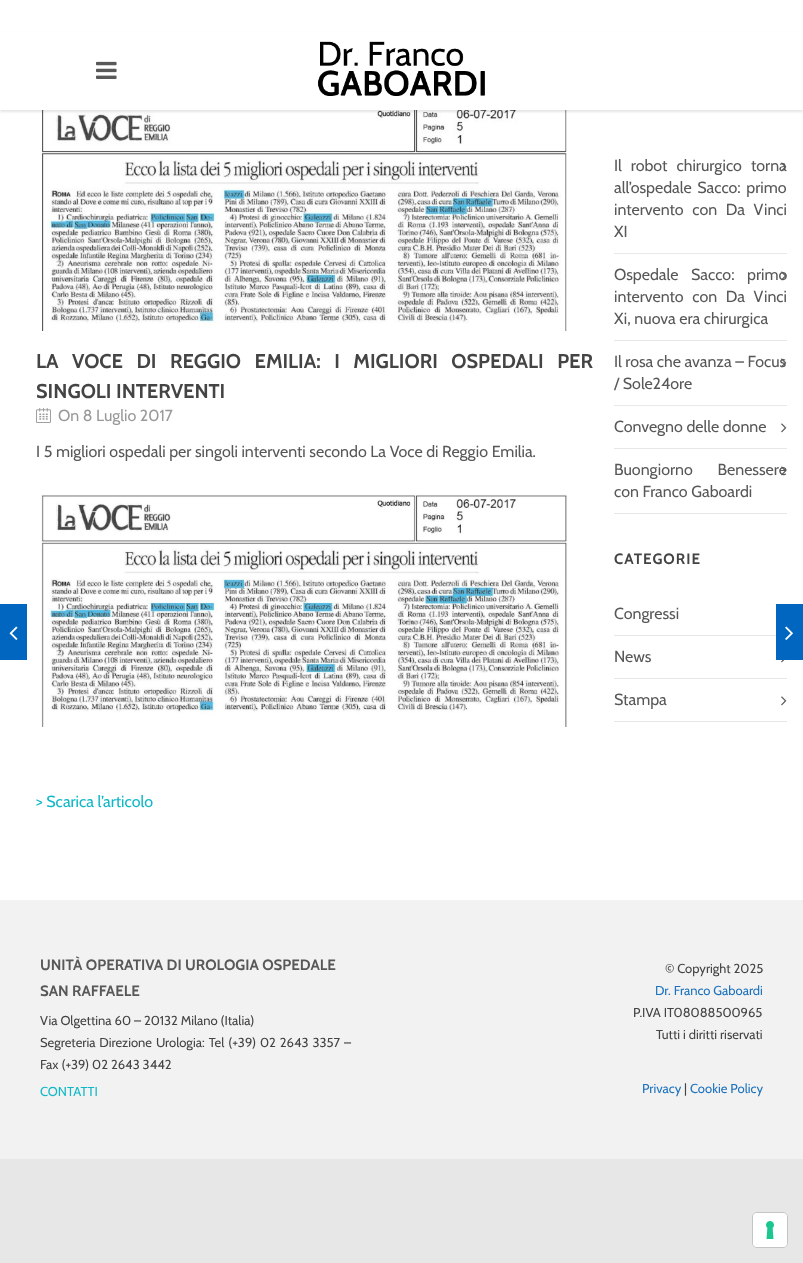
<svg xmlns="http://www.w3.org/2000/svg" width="803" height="1263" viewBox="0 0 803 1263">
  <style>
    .t1 { font: bold 20px Cabin; fill: #444; }
    .t2 { font: 16px Cabin; fill: #999; }
    .t3 { font: 16px Cabin; fill: #585858; }
    .t4 { font: 16px Cabin; fill: #10b8c7; }
    .t5 { font: bold 15px Cabin; letter-spacing: 1px; fill: #444; }
    .t6 { font: bold 15px Cabin; fill: #585858; }
    .t7 { font: 13px Cabin; fill: #444; }
    .t8 { font: 13px Cabin; fill: #10b8c7; }
    .t9 { font: 13px Cabin; fill: #1e73be; }
  </style>
  <rect width="100%" height="100%" fill="#e7e7e7"/>
  <rect x="0" y="0" width="803" height="900" fill="#fff"/>
  <image x="41" y="110" width="526" height="221" href="images/3.png"/>
  <rect x="0" y="32" width="803" height="80" fill="#0000001a" filter="blur(1px)"/>
  <rect x="0" y="31" width="803" height="79" fill="#fff"/>
  <image x="96" y="61" width="21" height="18" href="images/1.png"/>
  <image x="318" y="41" width="167" height="55" href="images/2.png"/>
  <text x="36" y="368" word-spacing="9" class="t1">LA VOCE DI REGGIO EMILIA: I MIGLIORI OSPEDALI PER</text>
  <text x="36" y="398" class="t1">SINGOLI INTERVENTI</text>
  <image x="36" y="408" width="15" height="15" href="images/4.png"/>
  <text x="58" y="421" class="t2">On 8 Luglio 2017</text>
  <text x="36" y="457" class="t3">I 5 migliori ospedali per singoli interventi secondo La Voce di Reggio Emilia.</text>
  <image x="41" y="494" width="527" height="233" href="images/5.png"/>
  <text x="36" y="807" class="t4">&gt; Scarica l’articolo</text>
  <rect x="614" y="253" width="173" height="1" fill="#e7e7e7"/>
  <text x="614" y="171" word-spacing="5.5" class="t3">Il robot chirurgico torna</text>
  <image x="781" y="162" width="6" height="10" href="images/6.png"/>
  <text x="614" y="193" word-spacing="2" class="t3">all’ospedale Sacco: primo</text>
  <text x="614" y="215" word-spacing="5" class="t3">intervento con Da Vinci</text>
  <text x="614" y="237" class="t3">XI</text>
  <rect x="614" y="340" width="173" height="1" fill="#e7e7e7"/>
  <text x="614" y="280" word-spacing="9" class="t3">Ospedale Sacco: primo</text>
  <image x="781" y="271" width="6" height="10" href="images/7.png"/>
  <text x="614" y="302" word-spacing="5" class="t3">intervento con Da Vinci</text>
  <text x="614" y="324" class="t3">Xi, nuova era chirurgica</text>
  <rect x="614" y="405" width="173" height="1" fill="#e7e7e7"/>
  <text x="614" y="367" class="t3">Il rosa che avanza – Focus</text>
  <image x="781" y="358" width="6" height="10" href="images/8.png"/>
  <text x="614" y="389" class="t3">/ Sole24ore</text>
  <rect x="614" y="448" width="173" height="1" fill="#e7e7e7"/>
  <text x="614" y="432" class="t3">Convegno delle donne</text>
  <image x="781" y="423" width="6" height="10" href="images/9.png"/>
  <rect x="614" y="513" width="173" height="1" fill="#e7e7e7"/>
  <text x="614" y="475" word-spacing="21" class="t3">Buongiorno Benessere</text>
  <image x="781" y="466" width="6" height="10" href="images/10.png"/>
  <text x="614" y="497" class="t3">con Franco Gaboardi</text>
  <text x="614" y="564" class="t5">CATEGORIE</text>
  <rect x="614" y="635" width="162" height="1" fill="#e7e7e7"/>
  <text x="614" y="619" class="t3">Congressi</text>
  <rect x="614" y="678" width="173" height="1" fill="#e7e7e7"/>
  <text x="614" y="662" class="t3">News</text>
  <image x="781" y="660" width="4" height="3" href="images/11.png"/>
  <rect x="614" y="721" width="173" height="1" fill="#e7e7e7"/>
  <text x="614" y="705" class="t3">Stampa</text>
  <image x="781" y="696" width="6" height="10" href="images/9.png"/>
  <rect x="0" y="604" width="27" height="56" fill="#0066bf"/>
  <image x="9" y="626" width="9" height="14" href="images/12.png"/>
  <rect x="776" y="604" width="27" height="56" fill="#0066bf"/>
  <image x="785" y="626" width="8" height="14" href="images/13.png"/>
  <rect x="0" y="900" width="803" height="259" fill="#f2f2f2"/>
  <text x="40" y="970" class="t6">UNITÀ OPERATIVA DI UROLOGIA OSPEDALE</text>
  <text x="40" y="996" class="t6">SAN RAFFAELE</text>
  <text x="40" y="1025" class="t7">Via Olgettina 60 – 20132 Milano (Italia)</text>
  <text x="40" y="1047" word-spacing="1" class="t7">Segreteria Direzione Urologia: Tel (+39) 02 2643 3357 –</text>
  <text x="40" y="1069" class="t7">Fax (+39) 02 2643 3442</text>
  <text x="40" y="1096" class="t8">CONTATTI</text>
  <text x="665" y="973" class="t7">© Copyright 2025</text>
  <text x="655" y="995" class="t9">Dr. Franco Gaboardi</text>
  <text x="633" y="1017" class="t7">P.IVA IT08088500965</text>
  <text x="656" y="1039" class="t7">Tutti i diritti riservati</text>
  <text x="642" y="1093" class="t9">Privacy</text>
  <text x="684" y="1093" class="t7">|</text>
  <text x="690" y="1093" class="t9">Cookie Policy</text>
  <rect x="752.5" y="1212.5" width="35" height="35" rx="4.5" fill="none" stroke="#c4c4c4"/>
  <rect x="753" y="1213" width="34" height="34" rx="4" fill="#fff"/>
  <image x="766" y="1221" width="8" height="18" href="images/14.png"/>
</svg>
